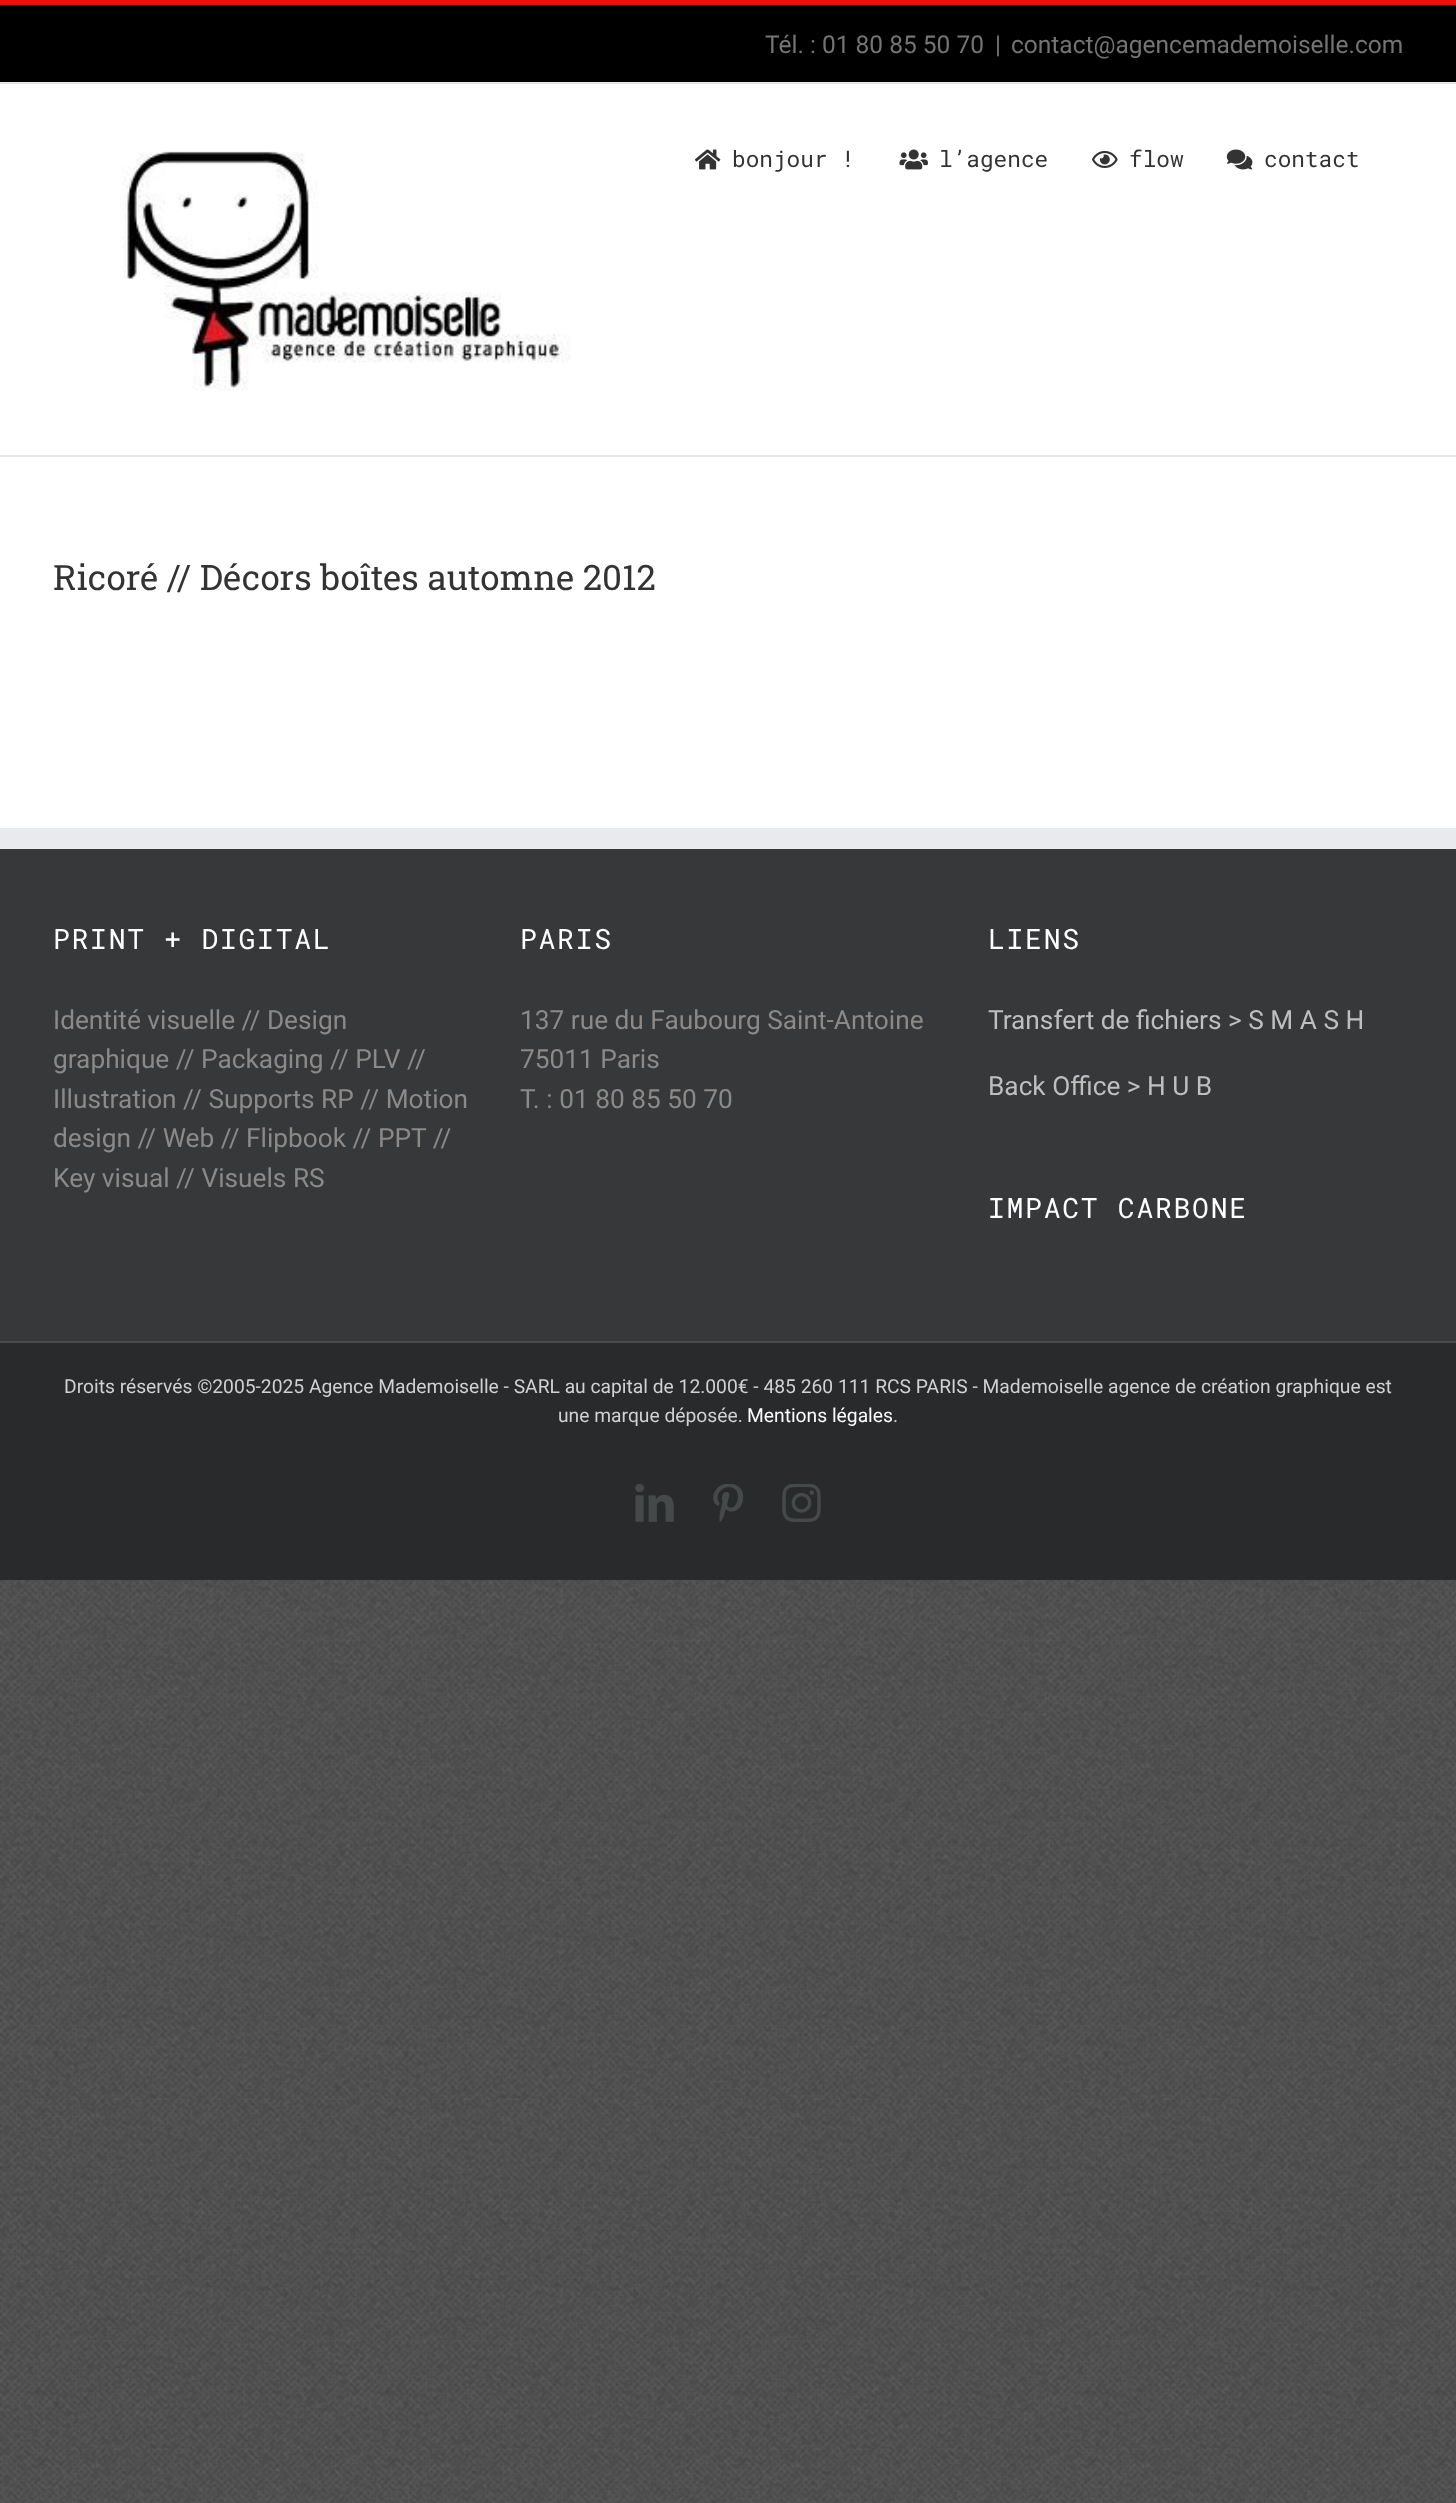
<svg xmlns="http://www.w3.org/2000/svg" width="1456" height="2503" viewBox="0 0 1456 2503">
  <style>
    .t1 { font: 24.5px Roboto; fill: #747474; }
    .t2 { font: 22.75px Roboto Mono; fill: #333; }
    .t3 { font: 35px Roboto Slab; fill: #333; }
    .t4 { font: 28px Roboto Mono; letter-spacing: 1.75px; fill: #fff; }
    .t5 { font: 26.25px Roboto; fill: #8c8989; }
    .t6 { font: 26.25px Roboto; fill: #bfbfbf; }
    .t7 { font: 19.25px Roboto; fill: #d1d1d1; }
    .t8 { font: 19.25px Roboto; fill: #fff; }
  </style>
  <rect width="100%" height="100%" fill="#fff"/>
  <image x="0" y="1580" width="1456" height="923" href="images/1.png"/>
  <rect x="0" y="5" width="1456" height="77" fill="#000"/>
  <rect x="0" y="0" width="1456" height="5" fill="#ee1010"/>
  <rect x="0" y="82" width="1456" height="2" fill="#e5e5e5"/>
  <text x="765" y="53" class="t1">Tél. : 01 80 85 50 70</text>
  <text x="995" y="53" class="t1">|</text>
  <text x="1011" y="53" class="t1">contact@agencemademoiselle.com</text>
  <rect x="0" y="455" width="1456" height="2" fill="#e5e5e5"/>
  <image x="122" y="151" width="449" height="240" href="images/2.png"/>
  <image x="695" y="149" width="26" height="21" href="images/3.png"/>
  <text x="732" y="167" class="t2">bonjour !</text>
  <image x="899" y="149" width="29" height="21" href="images/4.png"/>
  <text x="939" y="167" class="t2">l’agence</text>
  <image x="1092" y="150" width="26" height="18" href="images/5.png"/>
  <text x="1129" y="167" class="t2">flow</text>
  <image x="1226" y="149" width="27" height="21" href="images/6.png"/>
  <text x="1264" y="167" class="t2">contact</text>
  <text x="53" y="590" class="t3">Ricoré // Décors boîtes automne 2012</text>
  <rect x="0" y="849" width="1456" height="492" fill="#363839"/>
  <rect x="0" y="828" width="1456" height="21" fill="#e9eaee"/>
  <text x="53" y="949" class="t4">PRINT + DIGITAL</text>
  <text x="53" y="1029" class="t5">Identité visuelle // Design</text>
  <text x="53" y="1068" class="t5">graphique // Packaging // PLV //</text>
  <text x="53" y="1108" class="t5">Illustration // Supports RP // Motion</text>
  <text x="53" y="1147" class="t5">design // Web // Flipbook // PPT //</text>
  <text x="53" y="1187" class="t5">Key visual // Visuels RS</text>
  <text x="520" y="949" class="t4">PARIS</text>
  <text x="520" y="1029" class="t5">137 rue du Faubourg Saint-Antoine</text>
  <text x="520" y="1068" class="t5">75011 Paris</text>
  <text x="520" y="1108" class="t5">T. : 01 80 85 50 70</text>
  <text x="988" y="949" class="t4">LIENS</text>
  <text x="988" y="1029" class="t6">Transfert de fichiers &gt; S M A S H</text>
  <text x="988" y="1095" class="t6">Back Office &gt; H U B</text>
  <text x="988" y="1218" class="t4">IMPACT CARBONE</text>
  <rect x="0" y="1343" width="1456" height="237" fill="#282a2b"/>
  <rect x="0" y="1341" width="1456" height="2" fill="#4b4c4d"/>
  <text x="64" y="1393" class="t7">Droits réservés ©2005-2025 Agence Mademoiselle - SARL au capital de 12.000€ - 485 260 111 RCS PARIS - Mademoiselle agence de création graphique est</text>
  <text x="558" y="1422" class="t7">une marque déposée.</text>
  <text x="747" y="1422" class="t8">Mentions légales</text>
  <text x="893" y="1422" class="t7">.</text>
  <image x="635" y="1484" width="39" height="38" href="images/7.png"/>
  <image x="713" y="1484" width="31" height="38" href="images/8.png"/>
  <image x="782" y="1484" width="39" height="38" href="images/9.png"/>
</svg>
